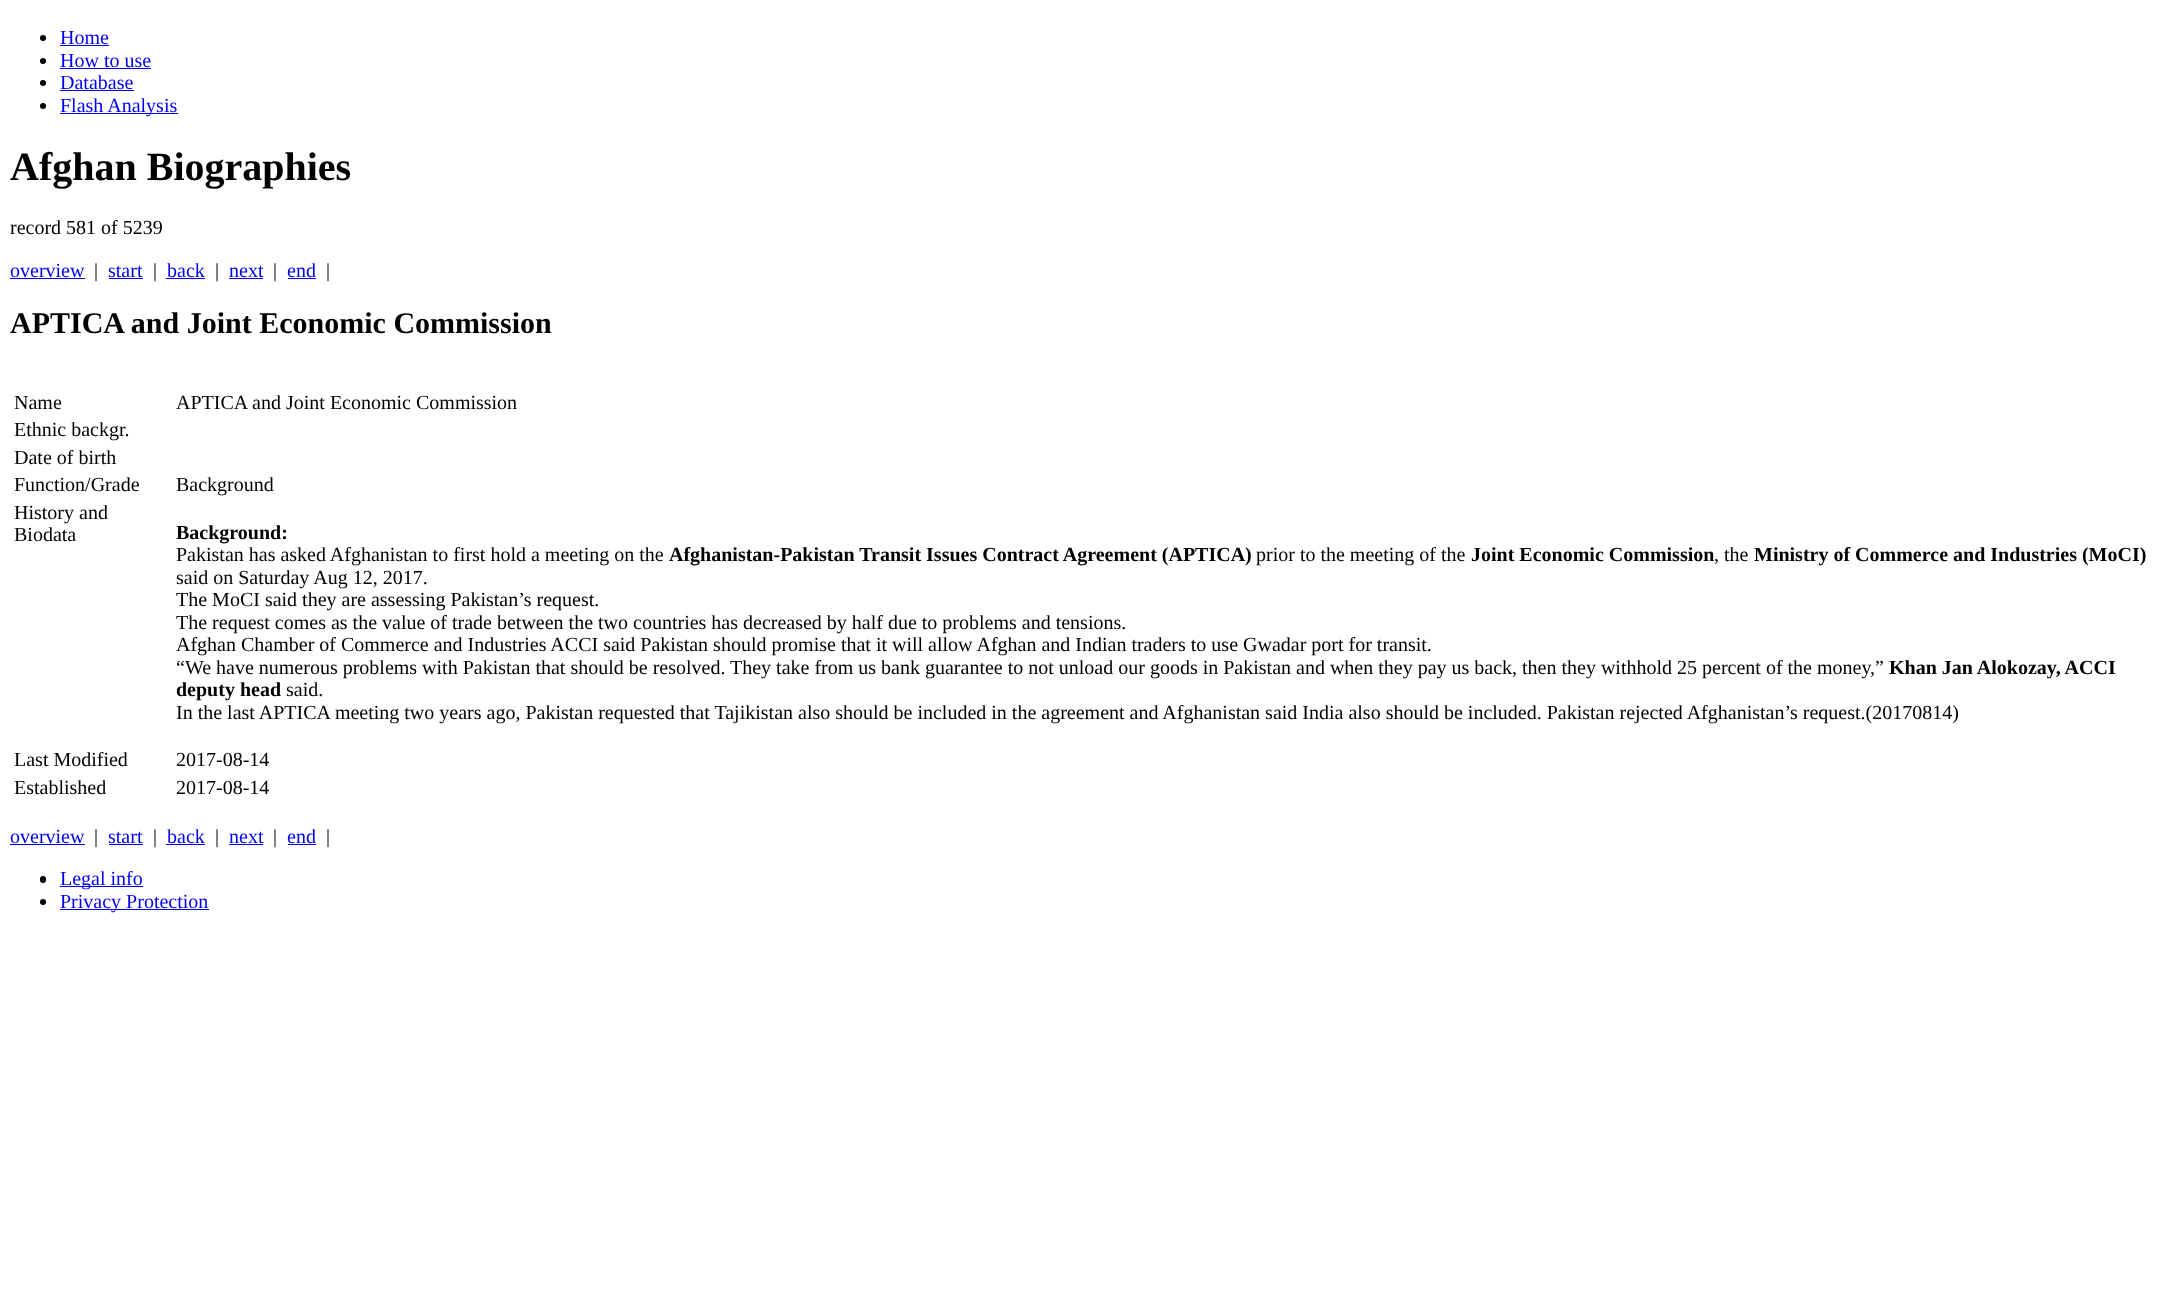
<svg xmlns="http://www.w3.org/2000/svg" width="2179" height="1303" viewBox="0 0 2179 1303">
  <style>
    .t1 { font: 20px Liberation Serif; fill: #00e; }
    .t2 { font: bold 40px Liberation Serif; fill: #000; }
    .t3 { font: 20px Liberation Serif; fill: #000; }
    .t4 { font: bold 30px Liberation Serif; fill: #000; }
    .t5 { font: bold 20px Liberation Serif; fill: #000; }
  </style>
  <rect width="100%" height="100%" fill="#fff"/>
  <circle cx="43" cy="38" r="3" fill="#000"/>
  <text x="60" y="44" class="t1">Home</text>
  <rect x="60" y="45" width="49" height="1" fill="#00e"/>
  <circle cx="43" cy="61" r="3" fill="#000"/>
  <text x="60" y="67" class="t1">How to use</text>
  <rect x="60" y="68" width="91" height="1" fill="#00e"/>
  <circle cx="43" cy="83" r="3" fill="#000"/>
  <text x="60" y="89" class="t1">Database</text>
  <rect x="60" y="90" width="74" height="1" fill="#00e"/>
  <circle cx="43" cy="106" r="3" fill="#000"/>
  <rect x="60" y="113" width="118" height="1" fill="#00e"/>
  <text x="60" y="112" class="t1">Flash Analysis</text>
  <text x="10" y="180" class="t2">Afghan Biographies</text>
  <text x="10" y="234" class="t3">record 581 of 5239</text>
  <text x="10" y="277" class="t1">overview</text>
  <rect x="10" y="278" width="75" height="1" fill="#00e"/>
  <text x="94" y="277" class="t3">|</text>
  <text x="108" y="277" class="t1">start</text>
  <rect x="109" y="278" width="34" height="1" fill="#00e"/>
  <text x="153" y="277" class="t3">|</text>
  <text x="167" y="277" class="t1">back</text>
  <rect x="166" y="278" width="39" height="1" fill="#00e"/>
  <text x="215" y="277" class="t3">|</text>
  <text x="229" y="277" class="t1">next</text>
  <rect x="229" y="278" width="34" height="1" fill="#00e"/>
  <text x="273" y="277" class="t3">|</text>
  <text x="287" y="277" class="t1">end</text>
  <rect x="288" y="278" width="28" height="1" fill="#00e"/>
  <text x="326" y="277" class="t3">|</text>
  <text x="10" y="333" class="t4">APTICA and Joint Economic Commission</text>
  <text x="14" y="409" class="t3">Name</text>
  <text x="176" y="409" class="t3">APTICA and Joint Economic Commission</text>
  <text x="14" y="436" class="t3">Ethnic backgr.</text>
  <text x="14" y="464" class="t3">Date of birth</text>
  <text x="14" y="491" class="t3">Function/Grade</text>
  <text x="176" y="491" class="t3">Background</text>
  <text x="14" y="519" class="t3">History and</text>
  <text x="14" y="541" class="t3">Biodata</text>
  <text x="176" y="539" class="t5">Background:</text>
  <text x="176" y="561" class="t3">Pakistan has asked Afghanistan to first hold a meeting on the</text>
  <text x="669" y="561" class="t5">Afghanistan-Pakistan Transit Issues Contract Agreement (APTICA)</text>
  <text x="1256" y="561" class="t3">prior to the meeting of the</text>
  <text x="1471" y="561" class="t5">Joint Economic Commission</text>
  <text x="1714" y="561" class="t3">, the</text>
  <text x="1754" y="561" class="t5">Ministry of Commerce and Industries (MoCI)</text>
  <text x="176" y="584" class="t3">said on Saturday Aug 12, 2017.</text>
  <text x="176" y="606" class="t3">The MoCI said they are assessing Pakistan’s request.</text>
  <text x="176" y="629" class="t3">The request comes as the value of trade between the two countries has decreased by half due to problems and tensions.</text>
  <text x="176" y="651" class="t3">Afghan Chamber of Commerce and Industries ACCI said Pakistan should promise that it will allow Afghan and Indian traders to use Gwadar port for transit.</text>
  <text x="176" y="674" class="t3">“We have numerous problems with Pakistan that should be resolved. They take from us bank guarantee to not unload our goods in Pakistan and when they pay us back, then they withhold 25 percent of the money,”</text>
  <text x="1889" y="674" class="t5">Khan Jan Alokozay, ACCI</text>
  <text x="176" y="696" class="t5">deputy head</text>
  <text x="286" y="696" class="t3">said.</text>
  <text x="176" y="719" class="t3">In the last APTICA meeting two years ago, Pakistan requested that Tajikistan also should be included in the agreement and Afghanistan said India also should be included. Pakistan rejected Afghanistan’s request.(20170814)</text>
  <text x="14" y="766" class="t3">Last Modified</text>
  <text x="176" y="766" class="t3">2017-08-14</text>
  <text x="14" y="794" class="t3">Established</text>
  <text x="176" y="794" class="t3">2017-08-14</text>
  <text x="10" y="843" class="t1">overview</text>
  <rect x="10" y="844" width="75" height="1" fill="#00e"/>
  <text x="94" y="843" class="t3">|</text>
  <text x="108" y="843" class="t1">start</text>
  <rect x="109" y="844" width="34" height="1" fill="#00e"/>
  <text x="153" y="843" class="t3">|</text>
  <text x="167" y="843" class="t1">back</text>
  <rect x="166" y="844" width="39" height="1" fill="#00e"/>
  <text x="215" y="843" class="t3">|</text>
  <text x="229" y="843" class="t1">next</text>
  <rect x="229" y="844" width="34" height="1" fill="#00e"/>
  <text x="273" y="843" class="t3">|</text>
  <text x="287" y="843" class="t1">end</text>
  <rect x="288" y="844" width="28" height="1" fill="#00e"/>
  <text x="326" y="843" class="t3">|</text>
  <rect x="40" y="876" width="6" height="7" rx="3" fill="#000"/>
  <rect x="60" y="886" width="83" height="1" fill="#00e"/>
  <text x="60" y="885" class="t1">Legal info</text>
  <circle cx="43" cy="902" r="3" fill="#000"/>
  <rect x="60" y="909" width="149" height="1" fill="#00e"/>
  <text x="60" y="908" class="t1">Privacy Protection</text>
</svg>
